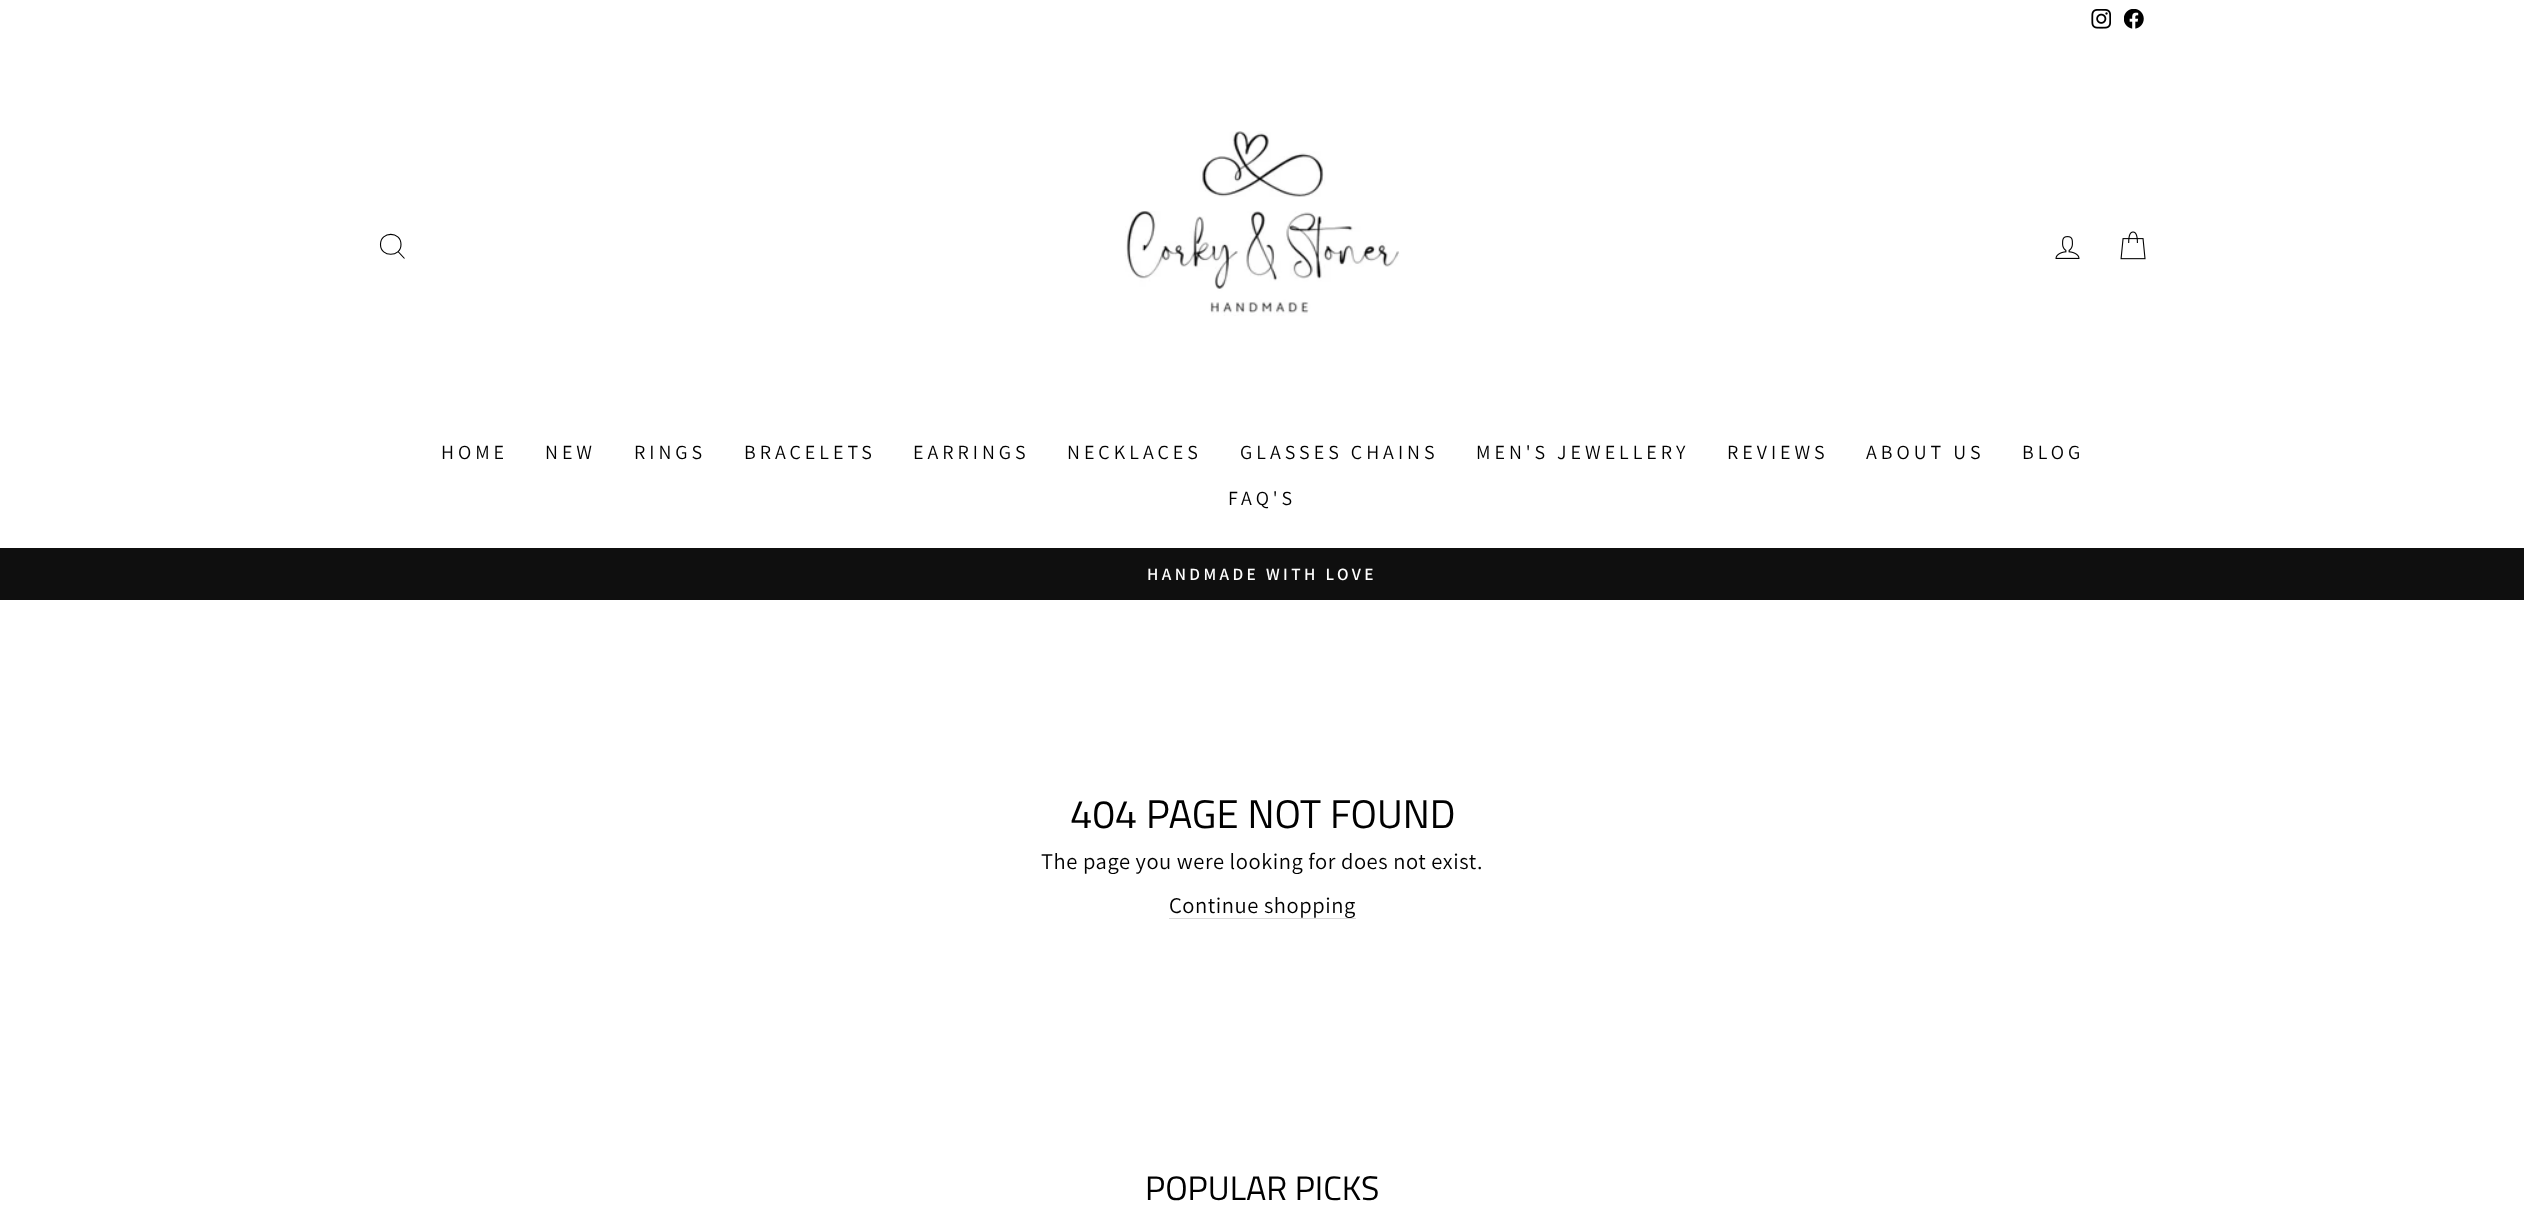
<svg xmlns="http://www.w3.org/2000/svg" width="2524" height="1224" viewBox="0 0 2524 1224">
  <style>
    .t1 { font: 20px Assistant; letter-spacing: 4px; fill: #000; }
    .t2 { font: 600 17.25px Assistant; letter-spacing: 3.4px; fill: #fff; }
    .t3 { font: 40px Titillium Web; fill: #000; }
    .t4 { font: 22.5px Assistant; letter-spacing: 0.55px; fill: #000; }
    .t5 { font: 34px Titillium Web; fill: #000; }
  </style>
  <rect width="100%" height="100%" fill="#fff"/>
  <image x="2091" y="9" width="20" height="20" href="images/1.png"/>
  <image x="2124" y="9" width="20" height="20" href="images/2.png"/>
  <rect x="0" y="548" width="2524" height="52" fill="#0f0f0f"/>
  <rect x="0" y="39" width="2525" height="509" fill="#00000033" filter="blur(0.5px)"/>
  <rect x="0" y="39" width="2524" height="509" fill="#fff"/>
  <path d="M401 244.5C401 257.5 380.5 257.5 380.5 244.5C380.5 231 401 231 401 244.5ZM404.5 258.5L398 251.5" fill="none" stroke="#000" stroke-width="1.1"/>
  <image x="1125" y="131" width="275" height="185" href="images/3.png"/>
  <image x="2055" y="236" width="25" height="23" href="images/4.png"/>
  <image x="2120" y="231" width="26" height="29" href="images/5.png"/>
  <text x="441" y="459" class="t1">HOME</text>
  <text x="545" y="459" class="t1">NEW</text>
  <text x="634" y="459" class="t1">RINGS</text>
  <text x="744" y="459" class="t1">BRACELETS</text>
  <text x="913" y="459" class="t1">EARRINGS</text>
  <text x="1067" y="459" class="t1">NECKLACES</text>
  <text x="1240" y="459" class="t1">GLASSES CHAINS</text>
  <text x="1476" y="459" class="t1">MEN'S JEWELLERY</text>
  <text x="1727" y="459" class="t1">REVIEWS</text>
  <text x="1866" y="459" class="t1">ABOUT US</text>
  <text x="2022" y="459" class="t1">BLOG</text>
  <text x="1228" y="505" class="t1">FAQ'S</text>
  <text x="1147" y="580" class="t2">HANDMADE WITH LOVE</text>
  <text x="1070" y="828" class="t3">404 PAGE NOT FOUND</text>
  <text x="1041" y="869" class="t4">The page you were looking for does not exist.</text>
  <rect x="1169" y="918" width="187" height="1" fill="#d9d9d9"/>
  <text x="1169" y="913" class="t4">Continue shopping</text>
  <text x="1145" y="1200" class="t5">POPULAR PICKS</text>
</svg>
